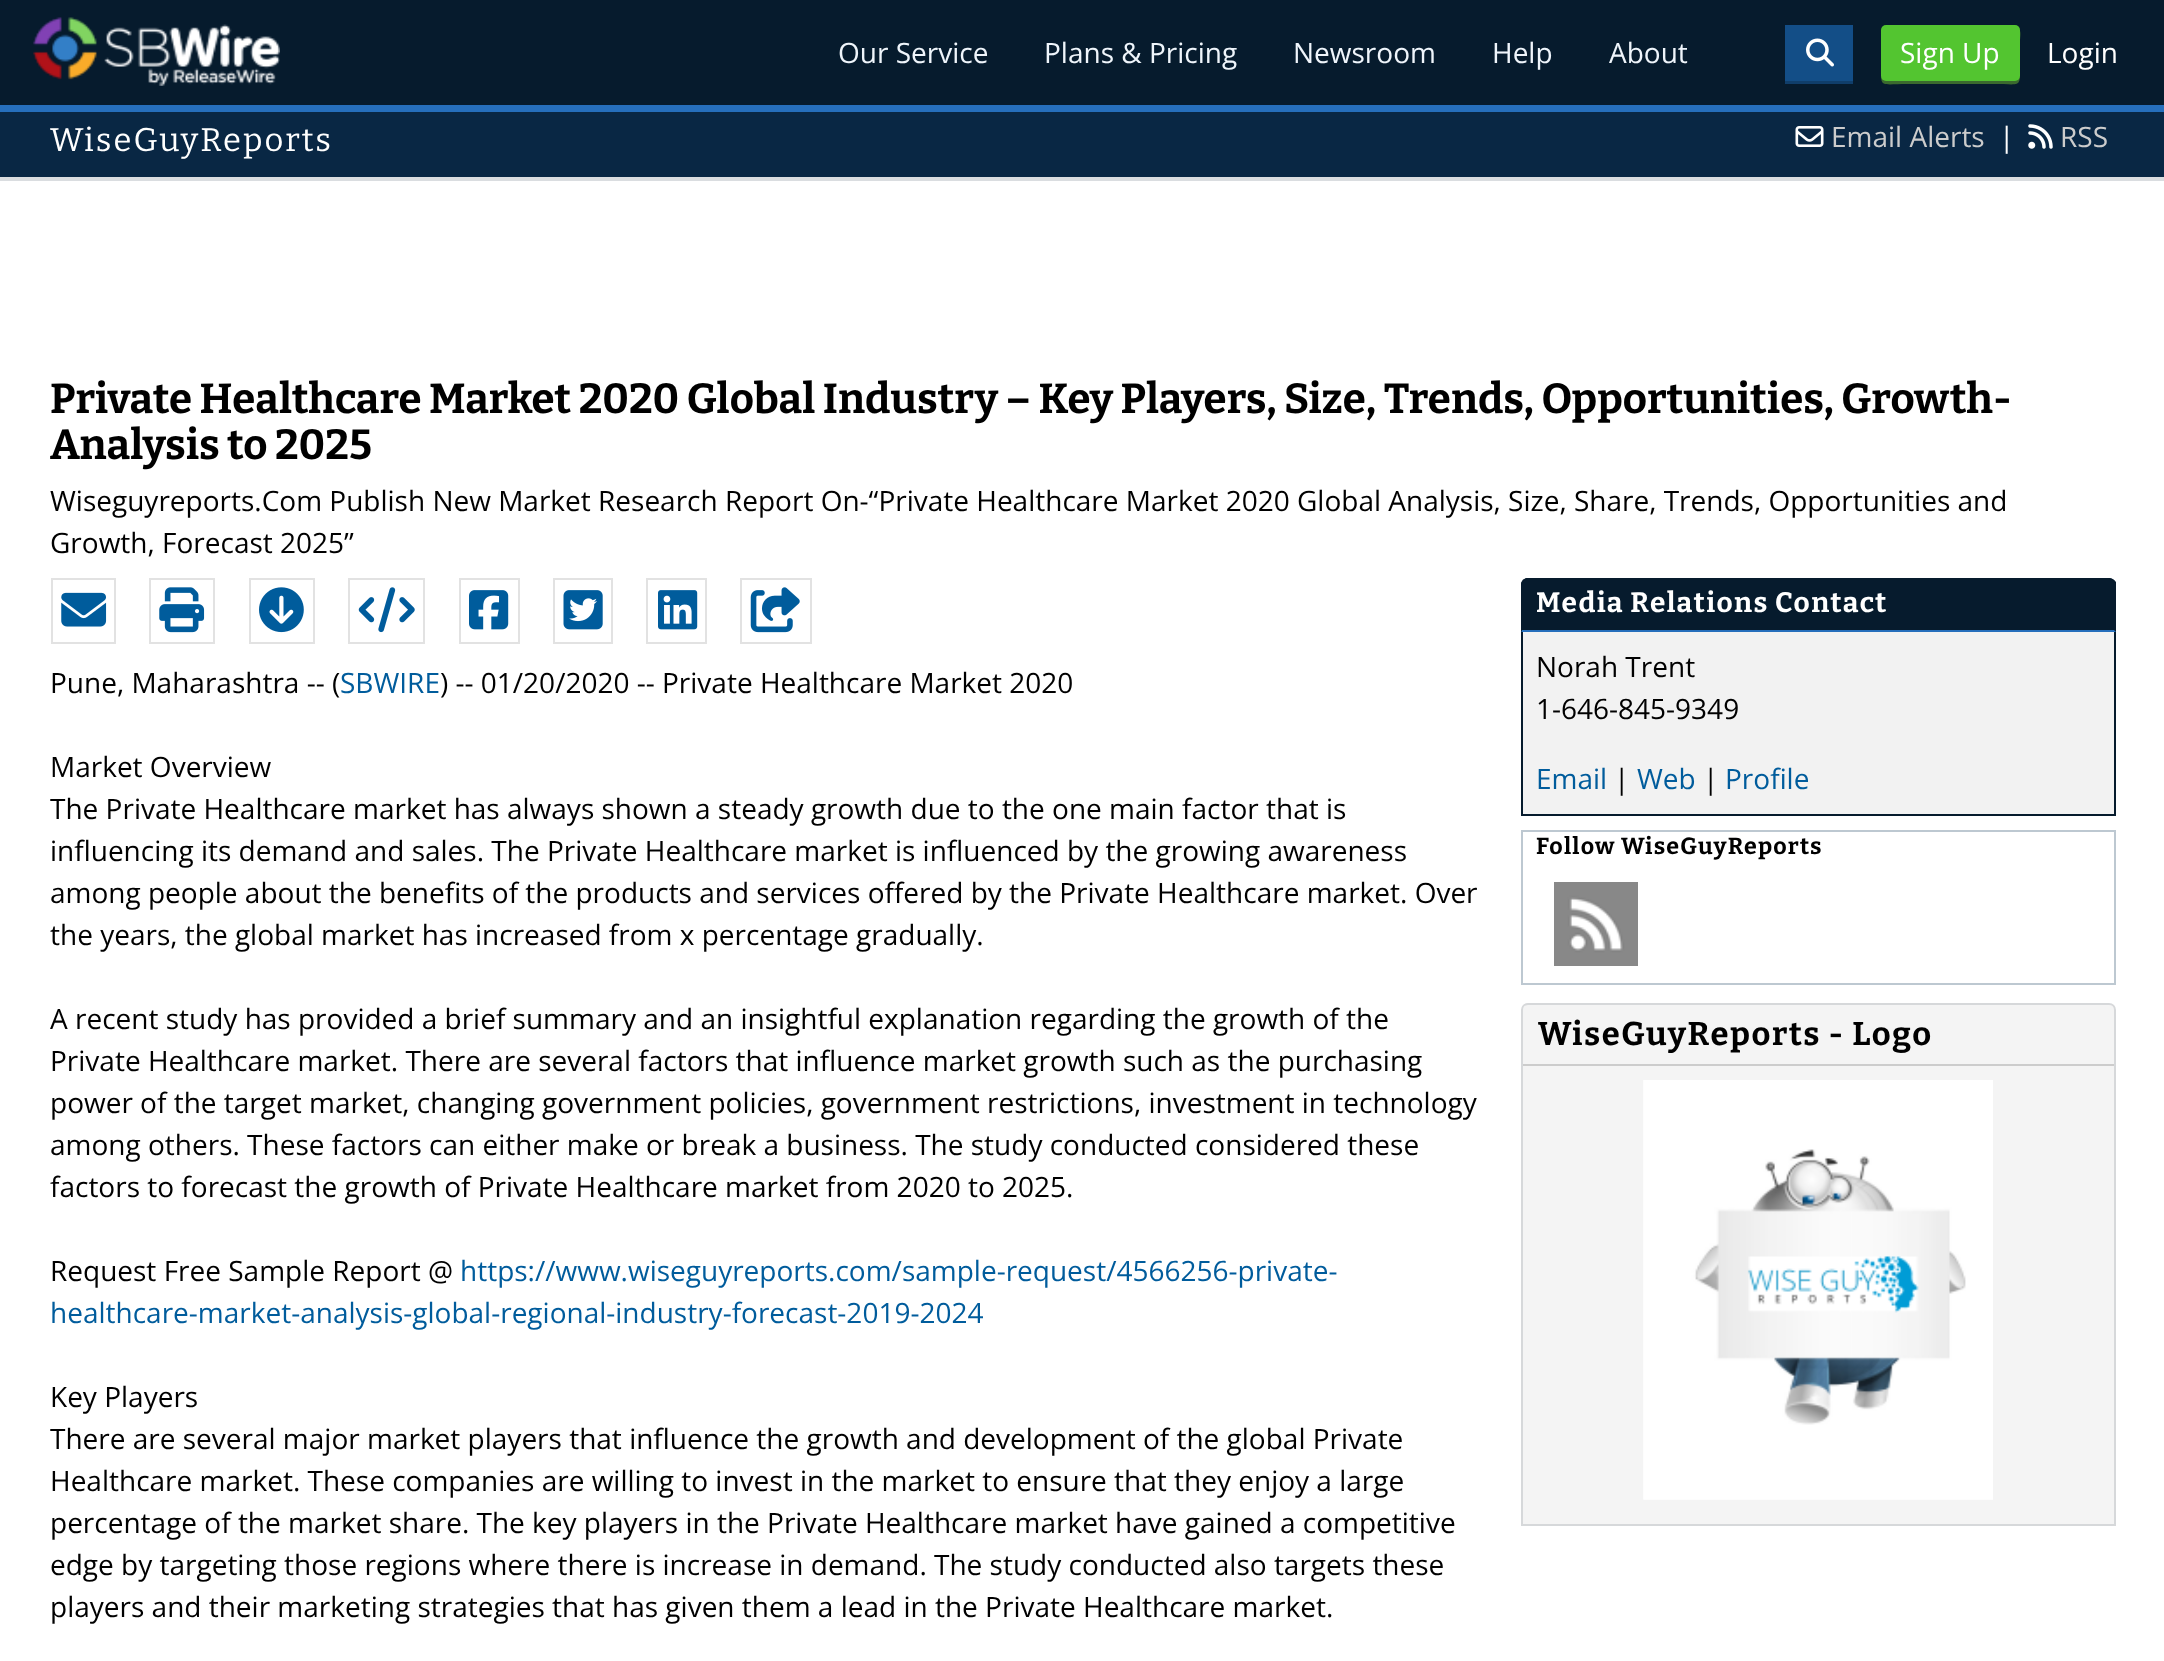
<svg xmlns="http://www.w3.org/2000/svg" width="2164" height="1661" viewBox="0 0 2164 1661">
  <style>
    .t1 { font: 28px Open Sans; fill: #eff5fb; }
    .t2 { font: 28px Open Sans; fill: #fff; }
    .t3 { font: 32.75px Bitter; letter-spacing: 2px; fill: #fff; }
    .t4 { font: 28px Open Sans; fill: #ccc; }
    .t5 { font: bold 42px Bitter; fill: #000; }
    .t6 { font: 28px Open Sans; fill: #000; }
    .t7 { font: 28px Open Sans; fill: #005c9c; }
    .t8 { font: bold 28px Bitter; letter-spacing: 1.4px; fill: #fff; }
    .t9 { font: bold 23.25px Bitter; letter-spacing: 1.2px; fill: #000; }
    .t10 { font: bold 32.75px Bitter; letter-spacing: 1.6px; fill: #000; }
  </style>
  <rect width="100%" height="100%" fill="#fff"/>
  <rect x="0" y="0" width="2164" height="105" fill="#061b2d"/>
  <rect x="0" y="105" width="2164" height="7" fill="#266fbc"/>
  <image x="33" y="17" width="247" height="69" href="images/1.png"/>
  <text x="838" y="63" class="t1">Our Service</text>
  <text x="1044" y="63" class="t1">Plans &amp; Pricing</text>
  <text x="1293" y="63" class="t1">Newsroom</text>
  <text x="1492" y="63" class="t1">Help</text>
  <text x="1609" y="63" class="t1">About</text>
  <rect x="1785" y="81" width="68" height="3" fill="#103e6a"/>
  <rect x="1785" y="25" width="68" height="56" fill="#134e87"/>
  <image x="1806" y="38" width="28" height="29" href="images/2.png"/>
  <path d="M1881 31V64C1881 89 1879 84 1908 84H1994C2022 84 2020 89 2020 64V41C2020 39 2021 33 2020 31V75C2020 78 2017 80 2014 80H1886C1884 80 1881 78 1881 75Z" fill="#3b6a2e"/>
  <rect x="1881" y="25" width="139" height="56" rx="5" fill="#53c530"/>
  <text x="1900" y="63" class="t2">Sign Up</text>
  <text x="2047" y="63" class="t2">Login</text>
  <rect x="0" y="112" width="2164" height="65" fill="#092744"/>
  <rect x="0" y="177" width="2164" height="4" fill="#dadde0"/>
  <text x="50" y="151" class="t3">WiseGuyReports</text>
  <image x="1795" y="126" width="29" height="21" href="images/3.png"/>
  <text x="1831" y="147" class="t4">Email Alerts</text>
  <text x="1999" y="147" class="t2">|</text>
  <image x="2028" y="124" width="25" height="25" href="images/4.png"/>
  <text x="2060" y="147" class="t4">RSS</text>
  <text x="50" y="413" class="t5">Private Healthcare Market 2020 Global Industry – Key Players, Size, Trends, Opportunities, Growth-</text>
  <text x="50" y="459" class="t5">Analysis to 2025</text>
  <text x="50" y="511" class="t6">Wiseguyreports.Com Publish New Market Research Report On-“Private Healthcare Market 2020 Global Analysis, Size, Share, Trends, Opportunities and</text>
  <text x="50" y="553" class="t6">Growth, Forecast 2025”</text>
  <rect x="52" y="579" width="63" height="64" fill="none" stroke="#e2e2e2" stroke-width="2"/>
  <image x="61" y="592" width="46" height="35" href="images/5.png"/>
  <rect x="150" y="579" width="64" height="64" fill="none" stroke="#e2e2e2" stroke-width="2"/>
  <image x="159" y="587" width="46" height="46" href="images/6.png"/>
  <rect x="250" y="579" width="64" height="64" fill="none" stroke="#e2e2e2" stroke-width="2"/>
  <image x="259" y="587" width="45" height="46" href="images/7.png"/>
  <rect x="349" y="579" width="75" height="64" fill="none" stroke="#e2e2e2" stroke-width="2"/>
  <image x="358" y="587" width="57" height="46" href="images/8.png"/>
  <rect x="460" y="579" width="59" height="64" fill="none" stroke="#e2e2e2" stroke-width="2"/>
  <image x="469" y="590" width="40" height="40" href="images/9.png"/>
  <rect x="554" y="579" width="58" height="64" fill="none" stroke="#e2e2e2" stroke-width="2"/>
  <image x="563" y="590" width="40" height="40" href="images/10.png"/>
  <rect x="647" y="579" width="59" height="64" fill="none" stroke="#e2e2e2" stroke-width="2"/>
  <image x="658" y="590" width="40" height="40" href="images/11.png"/>
  <rect x="741" y="579" width="70" height="64" fill="none" stroke="#e2e2e2" stroke-width="2"/>
  <image x="750" y="587" width="50" height="46" href="images/12.png"/>
  <text x="50" y="693" class="t6">Pune, Maharashtra -- (</text>
  <text x="340" y="693" class="t7">SBWIRE</text>
  <text x="440" y="693" class="t6">) -- 01/20/2020 -- Private Healthcare Market 2020</text>
  <text x="50" y="777" class="t6">Market Overview</text>
  <text x="50" y="819" class="t6">The Private Healthcare market has always shown a steady growth due to the one main factor that is</text>
  <text x="50" y="861" class="t6">influencing its demand and sales. The Private Healthcare market is influenced by the growing awareness</text>
  <text x="50" y="903" class="t6">among people about the benefits of the products and services offered by the Private Healthcare market. Over</text>
  <text x="50" y="945" class="t6">the years, the global market has increased from x percentage gradually.</text>
  <text x="50" y="1029" class="t6">A recent study has provided a brief summary and an insightful explanation regarding the growth of the</text>
  <text x="50" y="1071" class="t6">Private Healthcare market. There are several factors that influence market growth such as the purchasing</text>
  <text x="50" y="1113" class="t6">power of the target market, changing government policies, government restrictions, investment in technology</text>
  <text x="50" y="1155" class="t6">among others. These factors can either make or break a business. The study conducted considered these</text>
  <text x="50" y="1197" class="t6">factors to forecast the growth of Private Healthcare market from 2020 to 2025.</text>
  <text x="50" y="1281" class="t6">Request Free Sample Report @</text>
  <text x="460" y="1281" class="t7">https://www.wiseguyreports.com/sample-request/4566256-private-</text>
  <text x="50" y="1323" class="t7">healthcare-market-analysis-global-regional-industry-forecast-2019-2024</text>
  <text x="50" y="1407" class="t6">Key Players</text>
  <text x="50" y="1449" class="t6">There are several major market players that influence the growth and development of the global Private</text>
  <text x="50" y="1491" class="t6">Healthcare market. These companies are willing to invest in the market to ensure that they enjoy a large</text>
  <text x="50" y="1533" class="t6">percentage of the market share. The key players in the Private Healthcare market have gained a competitive</text>
  <text x="50" y="1575" class="t6">edge by targeting those regions where there is increase in demand. The study conducted also targets these</text>
  <text x="50" y="1617" class="t6">players and their marketing strategies that has given them a lead in the Private Healthcare market.</text>
  <path d="M1528 578H2109C2113 578 2116 581 2116 585V632H1521V585C1521 581 1524 578 1528 578Z" fill="#061b2d"/>
  <path d="M1528 578C1526 578 1524 579 1523 580L1524 581C1525 580 1527 579 1528 579H2109C2110 579 2112 580 2113 581L2114 580C2112 579 2111 578 2109 578Z" fill="#061b2d"/>
  <path d="M2114 580L2116 582V632L2114 630V584C2114 583 2113 582 2113 581Z" fill="#061b2d"/>
  <path d="M2116 632H1521L1522 630H2114Z" fill="#266fbc"/>
  <path d="M1523 580C1522 581 1521 582 1521 584V632L1522 630V584L1524 581Z" fill="#061b2d"/>
  <text x="1536" y="612" class="t8">Media Relations Contact</text>
  <rect x="1523" y="632" width="591" height="182" fill="#f2f2f2"/>
  <rect x="2114" y="632" width="2" height="184" fill="#061b2d"/>
  <rect x="1521" y="814" width="595" height="2" fill="#061b2d"/>
  <rect x="1521" y="632" width="2" height="184" fill="#061b2d"/>
  <text x="1536" y="677" class="t6">Norah Trent</text>
  <text x="1536" y="719" class="t6">1-646-845-9349</text>
  <text x="1536" y="789" class="t7">Email</text>
  <text x="1614" y="789" class="t6">|</text>
  <text x="1637" y="789" class="t7">Web</text>
  <text x="1703" y="789" class="t6">|</text>
  <text x="1725" y="789" class="t7">Profile</text>
  <rect x="1522" y="831" width="593" height="153" fill="none" stroke="#bdc8d1" stroke-width="2"/>
  <text x="1536" y="854" class="t9">Follow WiseGuyReports</text>
  <image x="1554" y="882" width="84" height="84" href="images/13.png"/>
  <path d="M1528 1004H2109C2112.5 1004 2115 1006.5 2115 1010V1525H1522V1010C1522 1006.5 1524.5 1004 1528 1004Z" fill="#f4f4f4" stroke="#d6d8da" stroke-width="2"/>
  <rect x="1523" y="1064" width="591" height="2" fill="#ccc"/>
  <text x="1538" y="1045" class="t10">WiseGuyReports - Logo</text>
  <image x="1643" y="1080" width="350" height="420" href="images/14.png"/>
</svg>
